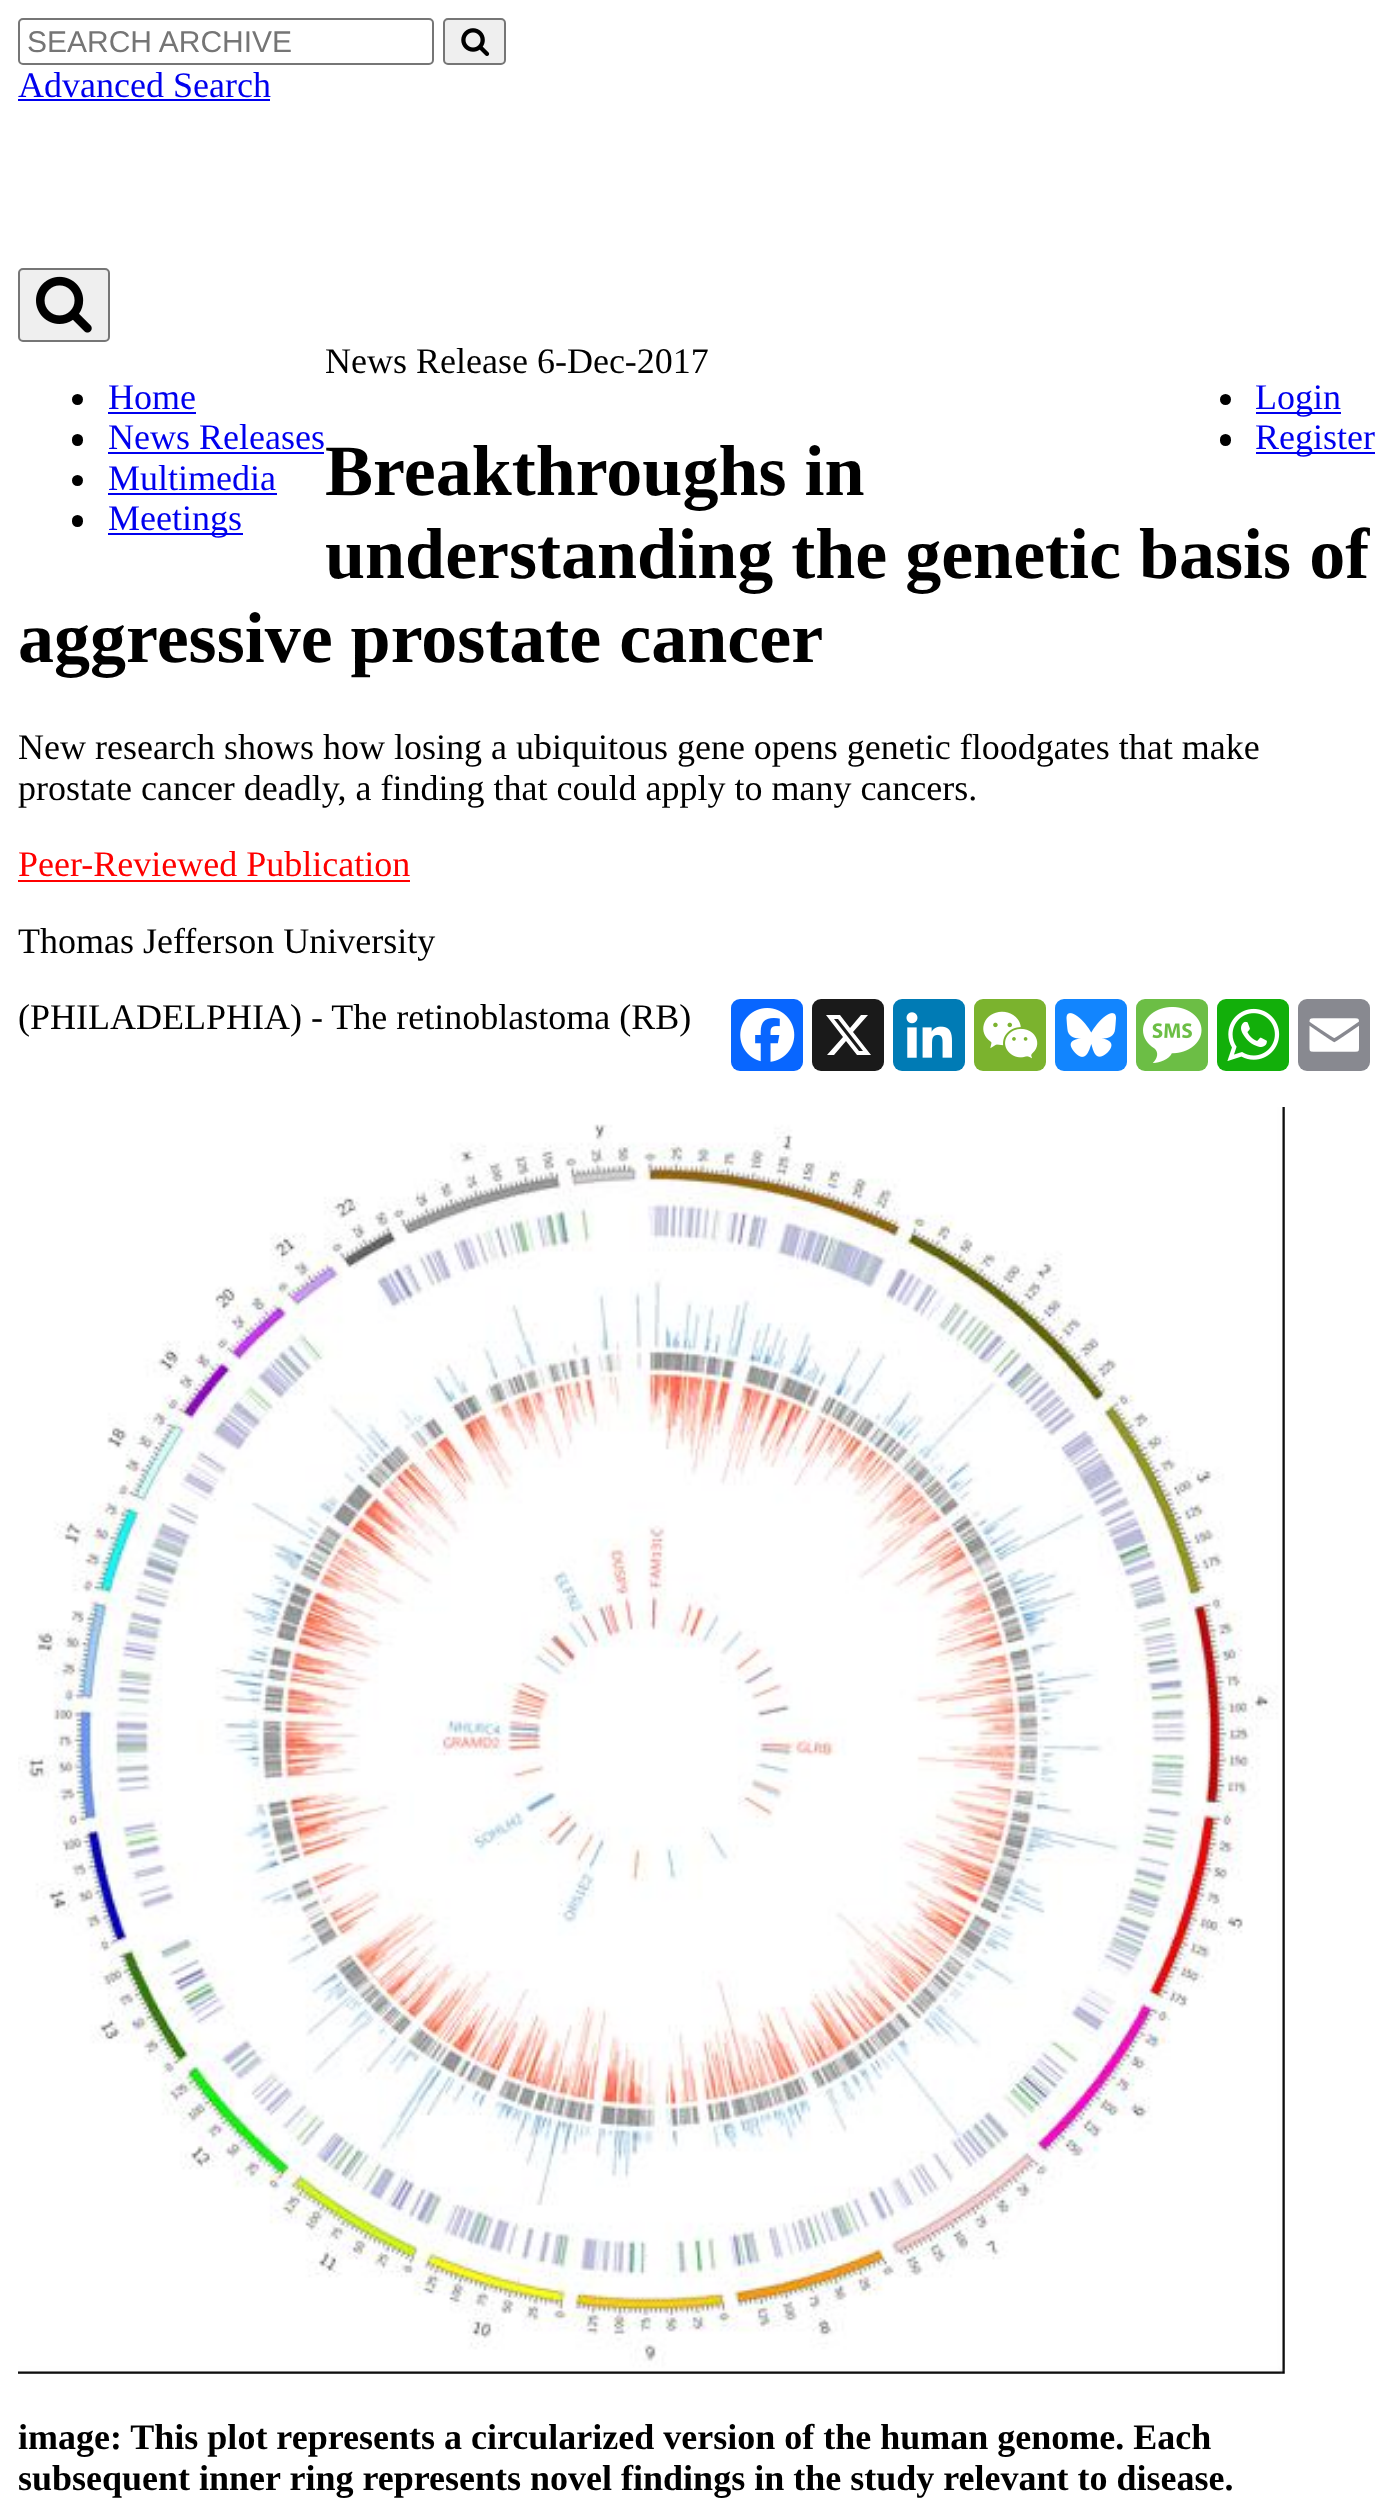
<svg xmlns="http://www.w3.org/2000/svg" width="1392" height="2500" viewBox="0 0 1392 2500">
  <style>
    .t1 { font: 30px Liberation Sans; fill: #757575; }
    .t2 { font: 36px Liberation Serif; fill: #00e; }
    .t3 { font: 36px Liberation Serif; fill: #000; }
    .t4 { font: bold 72px Liberation Serif; fill: #000; }
    .t5 { font: 36px Liberation Serif; fill: #f00; }
    .t6 { font: bold 36px Liberation Serif; fill: #000; }
  </style>
  <rect width="100%" height="100%" fill="#fff"/>
  <rect x="19" y="19" width="414" height="45" rx="4" fill="none" stroke="#767676" stroke-width="2"/>
  <text x="27" y="52" class="t1">SEARCH ARCHIVE</text>
  <rect x="444" y="19" width="61" height="45" rx="4" fill="#efefef" stroke="#767676" stroke-width="2"/>
  <image x="461" y="28" width="29" height="28" href="images/1.png"/>
  <text x="18" y="97" class="t2">Advanced Search</text>
  <rect x="18" y="99" width="252" height="2" fill="#00e"/>
  <rect x="19" y="269" width="90" height="72" rx="4" fill="#efefef" stroke="#767676" stroke-width="2"/>
  <image x="36" y="276" width="56" height="57" href="images/2.png"/>
  <circle cx="77.5" cy="399.5" r="5.5" fill="#000"/>
  <text x="108" y="409" class="t2">Home</text>
  <rect x="108" y="412" width="88" height="2" fill="#00e"/>
  <rect x="72" y="434" width="11" height="12" rx="5.5" fill="#000"/>
  <text x="108" y="449" class="t2">News Releases</text>
  <rect x="108" y="452" width="216" height="2" fill="#00e"/>
  <circle cx="77.5" cy="480.5" r="5.5" fill="#000"/>
  <text x="108" y="490" class="t2">Multimedia</text>
  <rect x="108" y="493" width="169" height="2" fill="#00e"/>
  <rect x="72" y="515" width="11" height="12" rx="5.5" fill="#000"/>
  <rect x="108" y="533" width="135" height="2" fill="#00e"/>
  <text x="108" y="530" class="t2">Meetings</text>
  <circle cx="1225.5" cy="399.5" r="5.5" fill="#000"/>
  <rect x="1256" y="412" width="85" height="2" fill="#00e"/>
  <text x="1255" y="409" class="t2">Login</text>
  <rect x="1220" y="434" width="11" height="12" rx="5.5" fill="#000"/>
  <rect x="1256" y="452" width="119" height="2" fill="#00e"/>
  <text x="1255" y="449" class="t2">Register</text>
  <text x="325" y="373" class="t3">News Release 6-Dec-2017</text>
  <text x="325" y="495" class="t4">Breakthroughs in</text>
  <text x="325" y="578" class="t4">understanding the genetic basis of</text>
  <text x="18" y="662" class="t4">aggressive prostate cancer</text>
  <text x="18" y="759" class="t3">New research shows how losing a ubiquitous gene opens genetic floodgates that make</text>
  <text x="18" y="800" class="t3">prostate cancer deadly, a finding that could apply to many cancers.</text>
  <text x="18" y="876" class="t5">Peer-Reviewed Publication</text>
  <rect x="18" y="880" width="392" height="2" fill="#f00"/>
  <text x="18" y="953" class="t3">Thomas Jefferson University</text>
  <rect x="731" y="999" width="72" height="72" rx="9" fill="#0866ff"/>
  <image x="740" y="1008" width="55" height="54" href="images/3.png"/>
  <rect x="812" y="999" width="72" height="72" rx="9" fill="#1a1a1a"/>
  <path d="M861 1015H868L853 1032L871 1055H857L846 1041L834 1055H827L843 1037L826 1015H840L850 1028ZM859 1051H863L838 1019H834Z" fill="#fff"/>
  <rect x="893" y="999" width="72" height="72" rx="9" fill="#007bb5"/>
  <image x="906" y="1012" width="46" height="46" href="images/4.png"/>
  <rect x="974" y="999" width="72" height="72" rx="9" fill="#7bb32e"/>
  <image x="983" y="1011" width="55" height="48" href="images/5.png"/>
  <rect x="1055" y="999" width="72" height="72" rx="9" fill="#1285fe"/>
  <image x="1066" y="1013" width="50" height="44" href="images/6.png"/>
  <rect x="1136" y="999" width="72" height="72" rx="9" fill="#6cbe45"/>
  <image x="1143" y="1007" width="59" height="56" href="images/7.png"/>
  <rect x="1217" y="999" width="72" height="72" rx="9" fill="#12af0a"/>
  <image x="1227" y="1008" width="53" height="53" href="images/8.png"/>
  <rect x="1298" y="999" width="72" height="72" rx="9" fill="#888990"/>
  <image x="1309" y="1018" width="50" height="34" href="images/9.png"/>
  <text x="18" y="1029" class="t3">(PHILADELPHIA) - The retinoblastoma (RB)</text>
  <image x="18" y="1107" width="1267" height="1267" href="images/10.png"/>
  <text x="18" y="2449" class="t6">image: This plot represents a circularized version of the human genome. Each</text>
  <text x="18" y="2490" class="t6">subsequent inner ring represents novel findings in the study relevant to disease.</text>
</svg>
